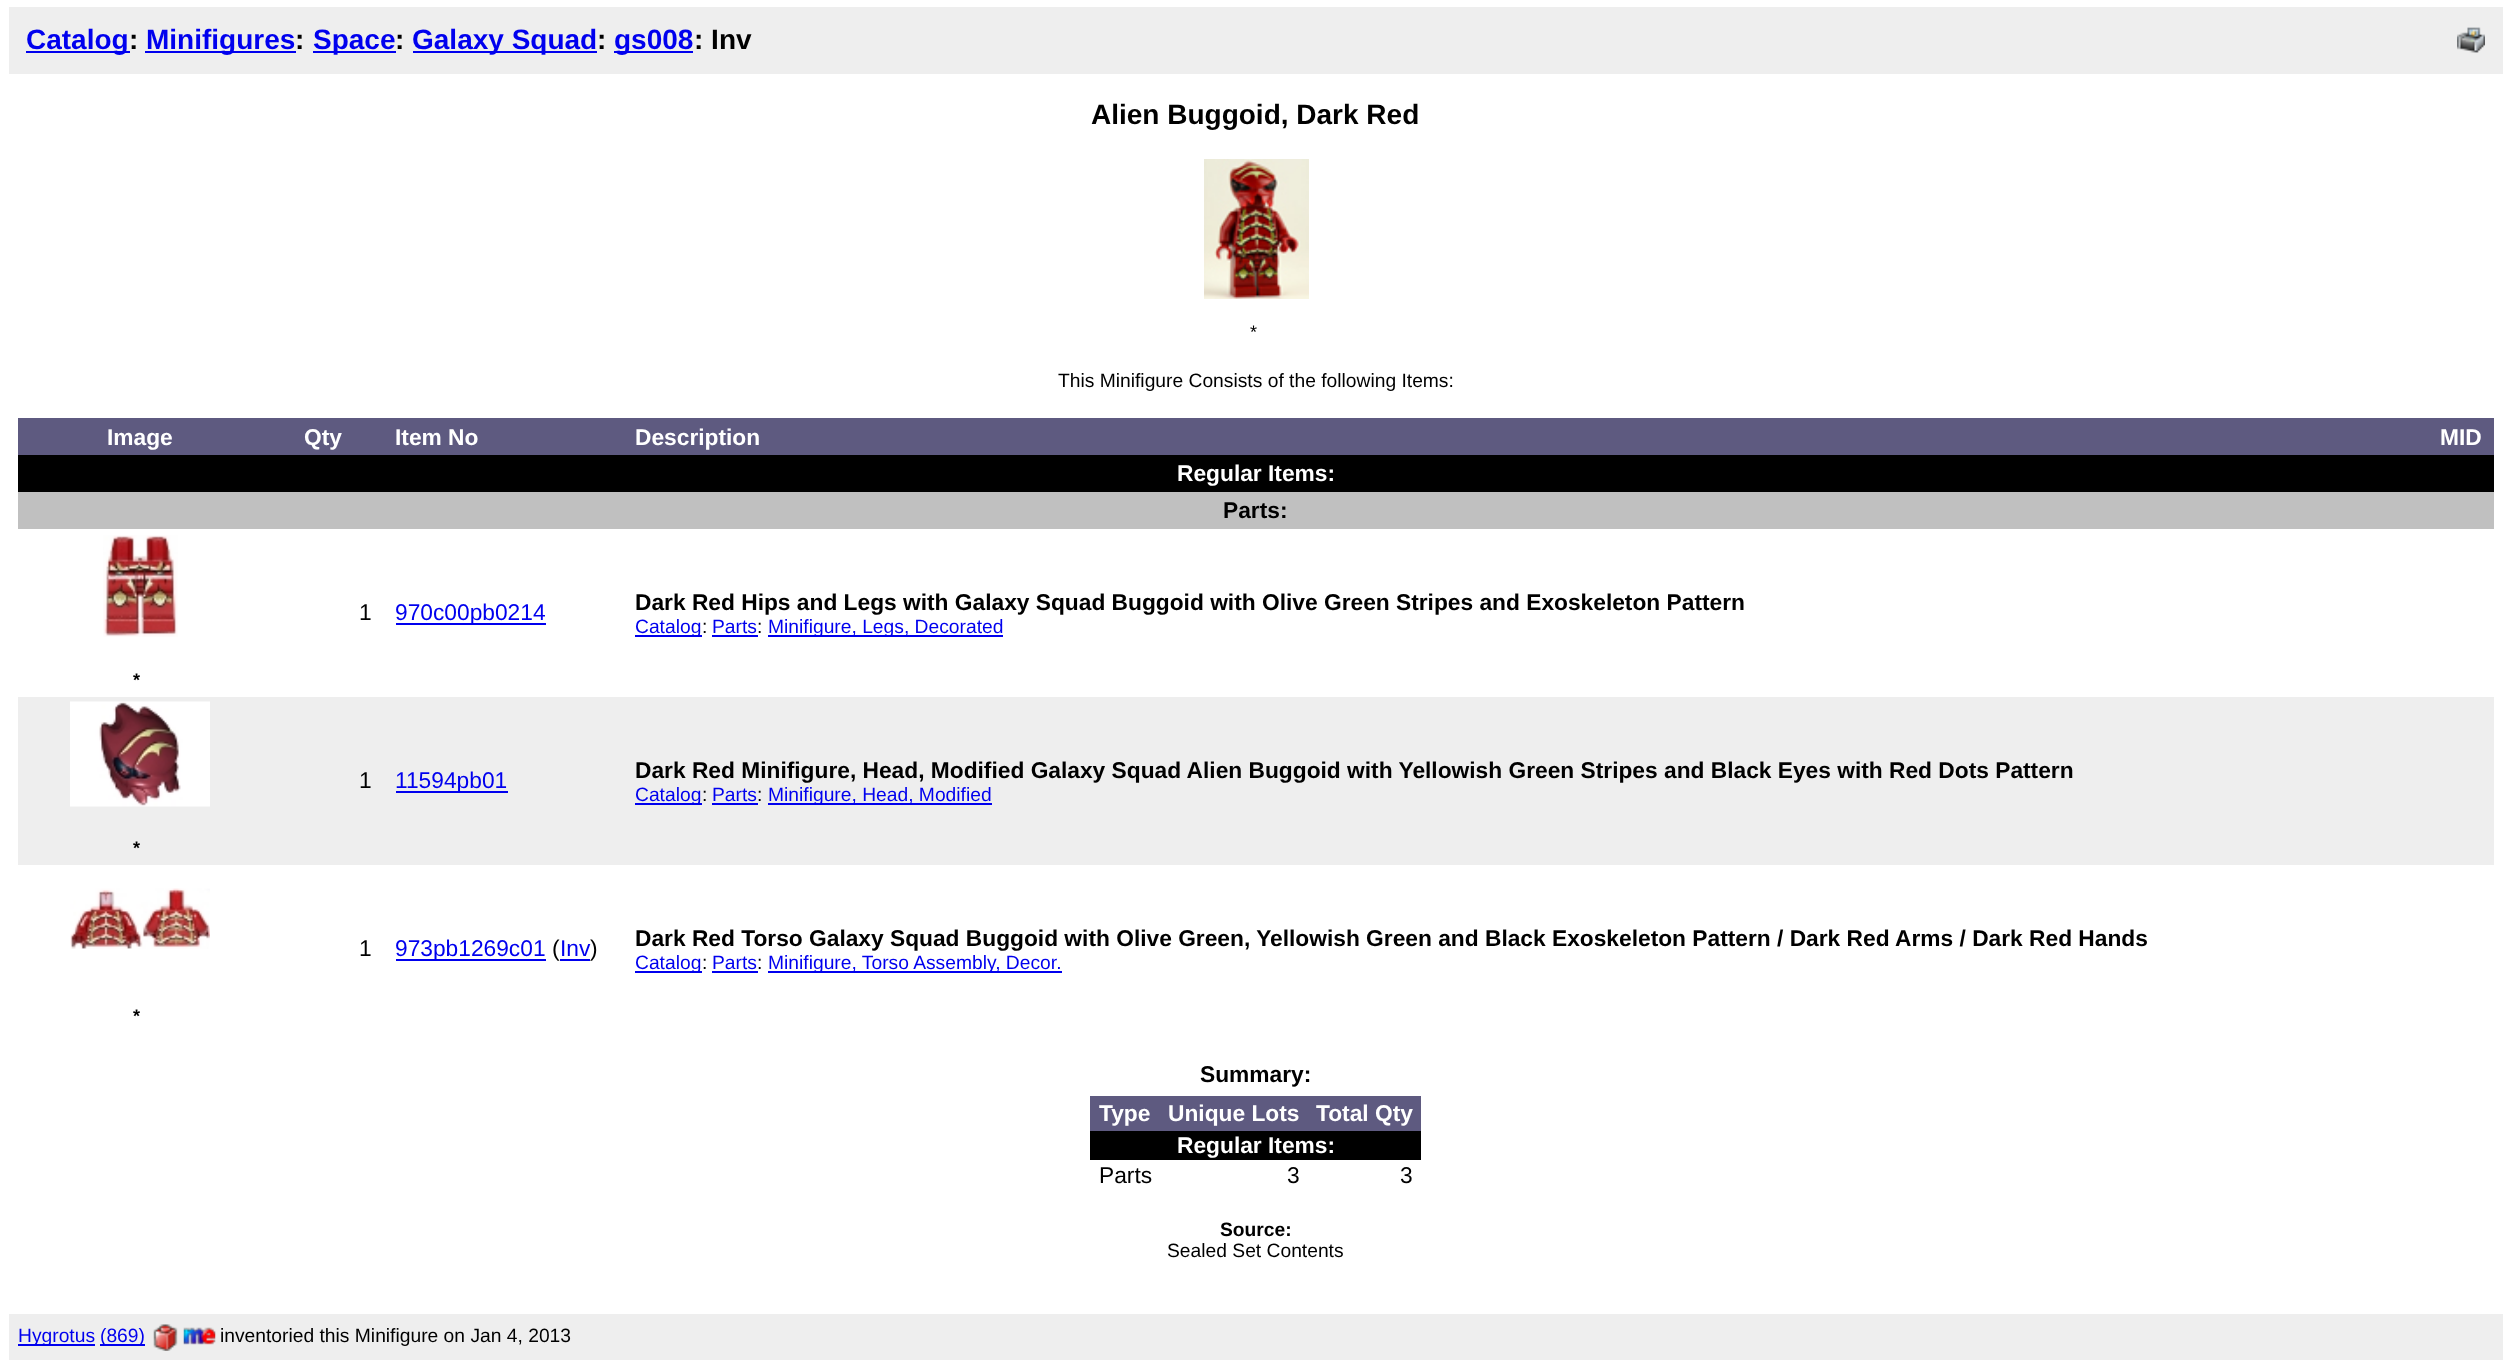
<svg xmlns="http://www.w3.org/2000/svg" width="2510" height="1367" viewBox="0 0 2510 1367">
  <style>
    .t1 { font: bold 28px Liberation Sans; fill: #00e; }
    .t2 { font: bold 28px Liberation Sans; fill: #000; }
    .t3 { font: 18px Liberation Sans; fill: #000; }
    .t4 { font: 19.25px Liberation Sans; fill: #000; }
    .t5 { font: bold 22.75px Liberation Sans; fill: #fff; }
    .t6 { font: bold 22.75px Liberation Sans; fill: #000; }
    .t7 { font: 22.75px Liberation Sans; fill: #000; }
    .t8 { font: 22.75px Liberation Sans; fill: #00e; }
    .t9 { font: 19.25px Liberation Sans; fill: #00e; }
    .t10 { font: bold 18px Liberation Sans; fill: #000; }
    .t11 { font: bold 19.25px Liberation Sans; fill: #000; }
  </style>
  <rect width="100%" height="100%" fill="#fff"/>
  <rect x="9" y="7" width="2494" height="67" fill="#eee"/>
  <rect x="26" y="51" width="104" height="2" fill="#00e"/>
  <text x="26" y="49" class="t1">Catalog</text>
  <text x="129" y="49" class="t2">:</text>
  <rect x="145" y="51" width="151" height="2" fill="#00e"/>
  <text x="146" y="49" class="t1">Minifigures</text>
  <text x="295" y="49" class="t2">:</text>
  <rect x="313" y="51" width="83" height="2" fill="#00e"/>
  <text x="313" y="49" class="t1">Space</text>
  <text x="395" y="49" class="t2">:</text>
  <rect x="413" y="51" width="184" height="2" fill="#00e"/>
  <text x="412" y="49" class="t1">Galaxy Squad</text>
  <text x="597" y="49" class="t2">:</text>
  <rect x="614" y="51" width="79" height="2" fill="#00e"/>
  <text x="614" y="49" class="t1">gs008</text>
  <text x="694" y="49" class="t2">: Inv</text>
  <image x="2457" y="27" width="28" height="26" href="images/1.png"/>
  <text x="1091" y="124" class="t2">Alien Buggoid, Dark Red</text>
  <image x="1204" y="159" width="105" height="140" href="images/2.png"/>
  <text x="1250" y="338" class="t3">*</text>
  <text x="1058" y="387" class="t4">This Minifigure Consists of the following Items:</text>
  <rect x="18" y="418" width="2476" height="37" fill="#5e5a80"/>
  <text x="107" y="445" class="t5">Image</text>
  <text x="304" y="445" class="t5">Qty</text>
  <text x="395" y="445" class="t5">Item No</text>
  <text x="635" y="445" class="t5">Description</text>
  <text x="2440" y="445" class="t5">MID</text>
  <rect x="18" y="455" width="2476" height="37" fill="#000"/>
  <text x="1177" y="481" class="t5">Regular Items:</text>
  <rect x="18" y="492" width="2476" height="37" fill="#c0c0c0"/>
  <text x="1223" y="518" class="t6">Parts:</text>
  <text x="359" y="620" class="t7">1</text>
  <rect x="396" y="623" width="150" height="2" fill="#00e"/>
  <text x="395" y="620" class="t8">970c00pb0214</text>
  <text x="635" y="610" class="t6">Dark Red Hips and Legs with Galaxy Squad Buggoid with Olive Green Stripes and Exoskeleton Pattern</text>
  <rect x="635" y="635" width="67" height="2" fill="#00e"/>
  <text x="635" y="633" class="t9">Catalog</text>
  <text x="702" y="633" class="t4">:</text>
  <text x="712" y="633" class="t9">Parts</text>
  <text x="757" y="633" class="t4">:</text>
  <rect x="712" y="635" width="46" height="2" fill="#00e"/>
  <rect x="768" y="635" width="235" height="2" fill="#00e"/>
  <text x="768" y="633" class="t9">Minifigure, Legs, Decorated</text>
  <image x="103" y="535" width="75" height="102" href="images/3.png"/>
  <text x="133" y="686" class="t10">*</text>
  <rect x="18" y="697" width="2476" height="168" fill="#eee"/>
  <text x="359" y="788" class="t7">1</text>
  <rect x="396" y="791" width="112" height="2" fill="#00e"/>
  <text x="395" y="788" class="t8">11594pb01</text>
  <text x="635" y="778" class="t6">Dark Red Minifigure, Head, Modified Galaxy Squad Alien Buggoid with Yellowish Green Stripes and Black Eyes with Red Dots Pattern</text>
  <rect x="635" y="803" width="67" height="2" fill="#00e"/>
  <text x="635" y="801" class="t9">Catalog</text>
  <text x="702" y="801" class="t4">:</text>
  <text x="712" y="801" class="t9">Parts</text>
  <text x="757" y="801" class="t4">:</text>
  <rect x="712" y="803" width="46" height="2" fill="#00e"/>
  <rect x="768" y="803" width="224" height="2" fill="#00e"/>
  <text x="768" y="801" class="t9">Minifigure, Head, Modified</text>
  <image x="70" y="701" width="140" height="106" href="images/4.png"/>
  <text x="133" y="854" class="t10">*</text>
  <text x="359" y="956" class="t7">1</text>
  <rect x="396" y="959" width="150" height="2" fill="#00e"/>
  <text x="395" y="956" class="t8">973pb1269c01</text>
  <text x="552" y="956" class="t7">(</text>
  <text x="560" y="956" class="t8">Inv</text>
  <rect x="560" y="959" width="30" height="2" fill="#00e"/>
  <text x="590" y="956" class="t7">)</text>
  <text x="635" y="946" class="t6">Dark Red Torso Galaxy Squad Buggoid with Olive Green, Yellowish Green and Black Exoskeleton Pattern / Dark Red Arms / Dark Red Hands</text>
  <rect x="635" y="971" width="67" height="2" fill="#00e"/>
  <text x="635" y="969" class="t9">Catalog</text>
  <text x="702" y="969" class="t4">:</text>
  <text x="712" y="969" class="t9">Parts</text>
  <text x="757" y="969" class="t4">:</text>
  <rect x="712" y="971" width="46" height="2" fill="#00e"/>
  <rect x="768" y="971" width="294" height="2" fill="#00e"/>
  <text x="768" y="969" class="t9">Minifigure, Torso Assembly, Decor.</text>
  <image x="70" y="888" width="140" height="61" href="images/5.png"/>
  <text x="133" y="1022" class="t10">*</text>
  <text x="1200" y="1082" class="t6">Summary:</text>
  <rect x="1090" y="1096" width="331" height="35" fill="#5e5a80"/>
  <text x="1099" y="1121" class="t5">Type</text>
  <text x="1168" y="1121" class="t5">Unique Lots</text>
  <text x="1316" y="1121" class="t5">Total Qty</text>
  <rect x="1090" y="1131" width="331" height="29" fill="#000"/>
  <text x="1177" y="1153" class="t5">Regular Items:</text>
  <text x="1099" y="1183" class="t7">Parts</text>
  <text x="1287" y="1183" class="t7">3</text>
  <text x="1400" y="1183" class="t7">3</text>
  <text x="1220" y="1236" class="t11">Source:</text>
  <text x="1167" y="1257" class="t4">Sealed Set Contents</text>
  <rect x="9" y="1314" width="2494" height="46" fill="#eee"/>
  <rect x="18" y="1344" width="77" height="2" fill="#00e"/>
  <text x="18" y="1342" class="t9">Hygrotus</text>
  <rect x="100" y="1344" width="45" height="2" fill="#00e"/>
  <text x="100" y="1342" class="t9">(869)</text>
  <image x="153" y="1324" width="25" height="27" href="images/6.png"/>
  <image x="183" y="1327" width="33" height="18" href="images/7.png"/>
  <text x="220" y="1342" class="t4">inventoried this Minifigure on Jan 4, 2013</text>
</svg>
